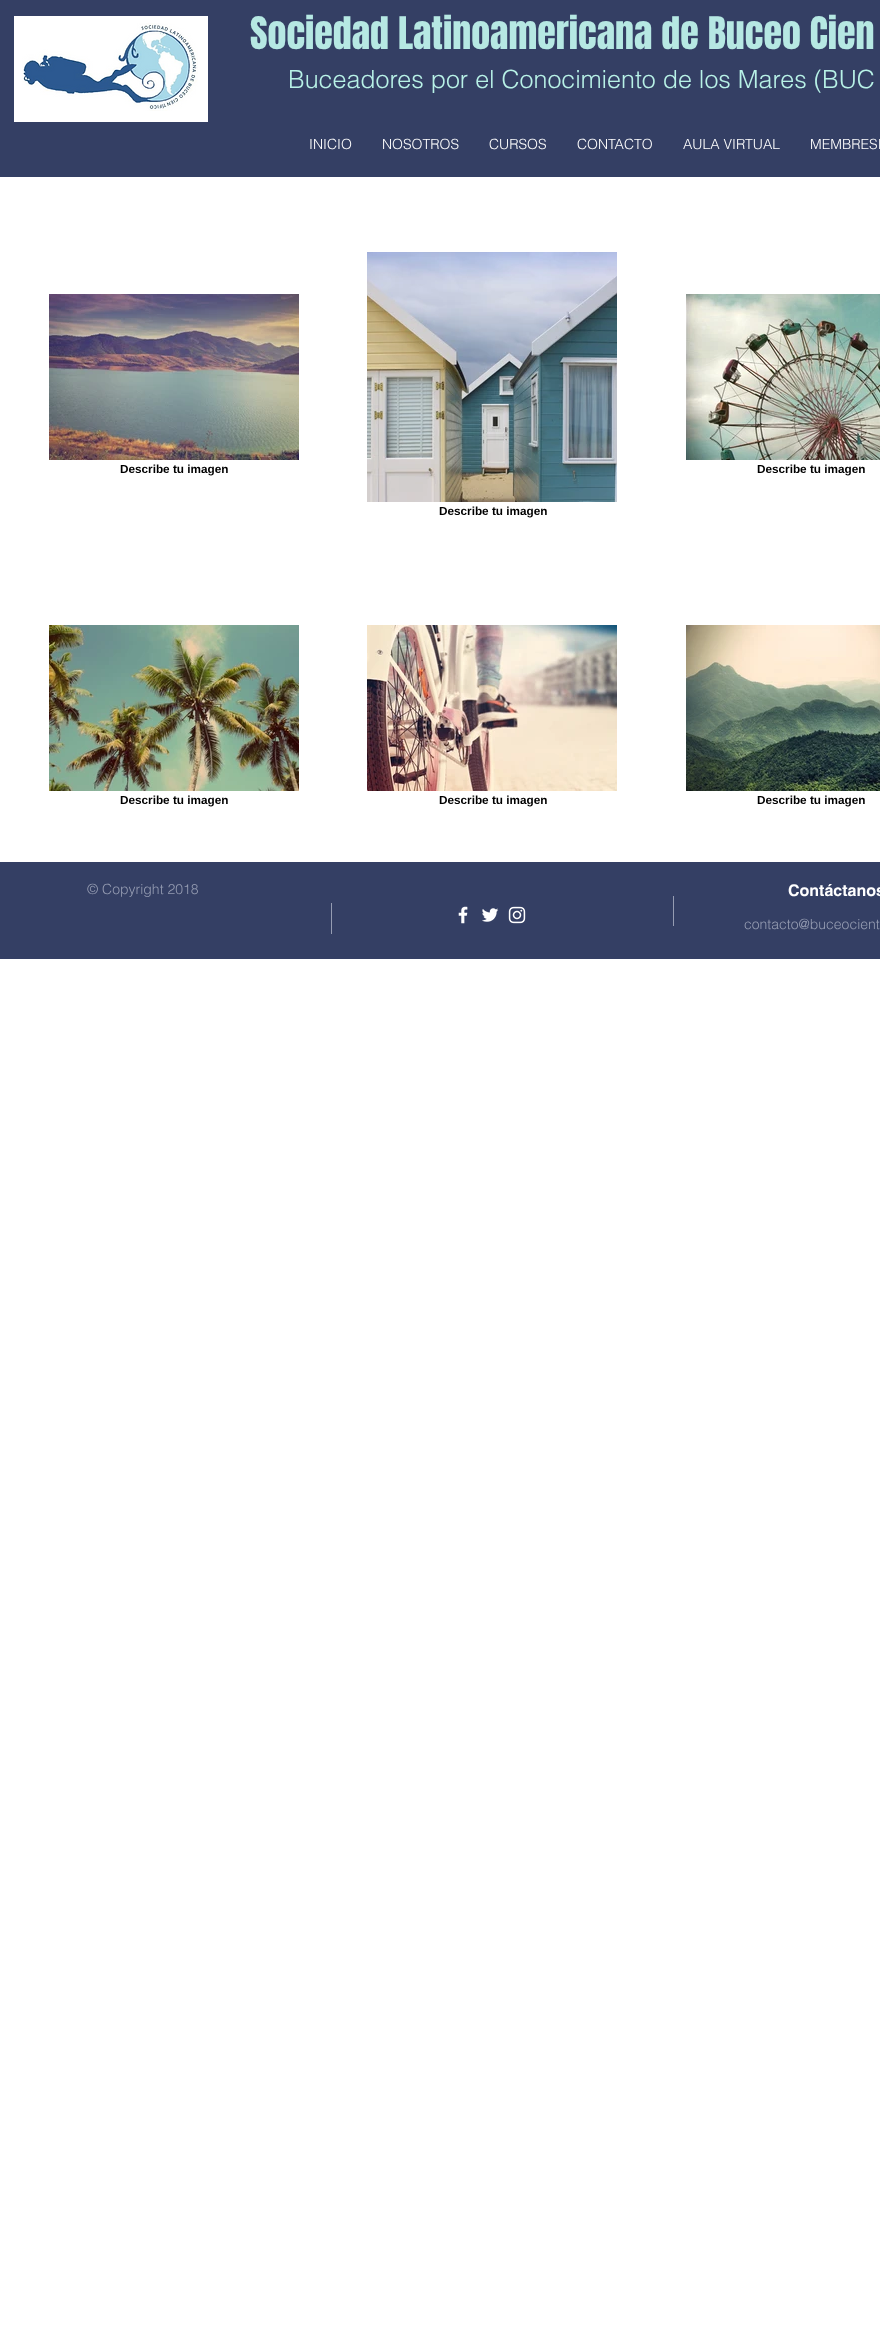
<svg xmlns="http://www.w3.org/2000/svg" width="880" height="2329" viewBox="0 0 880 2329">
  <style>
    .t1 { font: 38px Anton; fill: #b6e8e3; }
    .t2 { font: 300 25px helvetica; fill: #b8f2e7; }
    .t3 { font: 300 14px helvetica; fill: #fff; }
    .t4 { font: bold 11.75px Liberation Sans; fill: #000; }
    .t5 { font: 300 14px helvetica; fill: #959cb2; }
    .t6 { font: bold 16px helvetica; fill: #fff; }
  </style>
  <rect width="100%" height="100%" fill="#fff"/>
  <rect x="0" y="0" width="880" height="177" fill="#343f64"/>
  <rect x="14" y="16" width="194" height="106" fill="#fff"/>
  <image x="22" y="23" width="176" height="88" href="images/1.png"/>
  <text x="250" y="49" class="t1">Sociedad Latinoamericana de Buceo Cien</text>
  <text x="288" y="88" class="t2">Buceadores por el Conocimiento de los Mares (BUC</text>
  <text x="309" y="149" class="t3">INICIO</text>
  <text x="382" y="149" class="t3">NOSOTROS</text>
  <text x="489" y="149" class="t3">CURSOS</text>
  <text x="577" y="149" class="t3">CONTACTO</text>
  <text x="683" y="149" class="t3">AULA VIRTUAL</text>
  <text x="810" y="149" class="t3">MEMBRESI</text>
  <image x="49" y="294" width="250" height="166" href="images/2.png"/>
  <text x="120" y="473" class="t4">Describe tu imagen</text>
  <image x="686" y="294" width="194" height="166" href="images/3.png"/>
  <text x="757" y="473" class="t4">Describe tu imagen</text>
  <image x="367" y="252" width="250" height="250" href="images/4.png"/>
  <text x="439" y="515" class="t4">Describe tu imagen</text>
  <image x="49" y="625" width="250" height="166" href="images/5.png"/>
  <text x="120" y="804" class="t4">Describe tu imagen</text>
  <image x="367" y="625" width="250" height="166" href="images/6.png"/>
  <text x="439" y="804" class="t4">Describe tu imagen</text>
  <image x="686" y="625" width="194" height="166" href="images/7.png"/>
  <text x="757" y="804" class="t4">Describe tu imagen</text>
  <rect x="0" y="862" width="880" height="97" fill="#343f64"/>
  <text x="87" y="894" class="t5">© Copyright 2018</text>
  <text x="788" y="896" class="t6">Contáctanos</text>
  <rect x="331" y="903" width="1" height="31" fill="#959cb2"/>
  <image x="458" y="906" width="10" height="18" href="images/8.png"/>
  <image x="482" y="908" width="17" height="14" href="images/9.png"/>
  <image x="508" y="906" width="18" height="18" href="images/10.png"/>
  <rect x="673" y="896" width="1" height="30" fill="#959cb2"/>
  <text x="744" y="929" class="t5">contacto@buceocient</text>
</svg>
